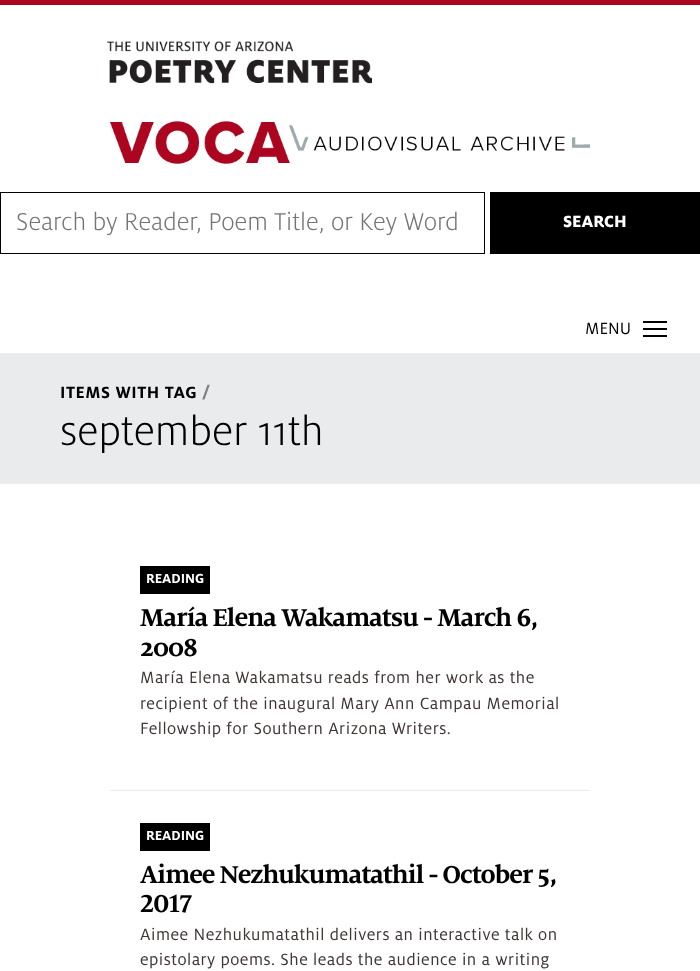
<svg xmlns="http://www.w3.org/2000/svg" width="700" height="971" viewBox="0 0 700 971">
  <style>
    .t1 { font: 300 27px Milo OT; fill: #757575; }
    .t2 { font: bold 18px Milo OT; fill: #fff; }
    .t3 { font: 18px Milo OT; fill: #000; }
    .t4 { font: bold 18px 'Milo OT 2'; letter-spacing: 0.5px; fill: #000; }
    .t5 { font: bold 18px 'Milo OT 2'; letter-spacing: 0.5px; fill: #808080; }
    .t6 { font: 300 45px Milo OT; fill: #000; }
    .t7 { font: bold 14.5px 'Milo OT 2'; fill: #fff; }
    .t8 { font: bold 27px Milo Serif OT; letter-spacing: -1px; fill: #000; }
    .t9 { font: 18px Milo OT; letter-spacing: 0.5px; fill: #403635; }
    .t10 { font: bold 27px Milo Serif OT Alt; letter-spacing: -1px; fill: #000; }
  </style>
  <rect width="100%" height="100%" fill="#fff"/>
  <rect x="0" y="0" width="700" height="5" fill="#ab0520"/>
  <image x="107" y="41" width="265" height="43" href="images/1.png"/>
  <image x="110" y="121" width="480" height="43" href="images/2.png"/>
  <rect x="0.5" y="192.5" width="484" height="61" fill="none" stroke="#000"/>
  <text x="16" y="230" class="t1">Search by Reader, Poem Title, or Key Word</text>
  <rect x="490" y="192" width="210" height="62" fill="#000"/>
  <text x="563" y="227" class="t2">SEARCH</text>
  <text x="585" y="334" class="t3">MENU</text>
  <rect x="643" y="328" width="24" height="2" fill="#000"/>
  <rect x="643" y="321" width="24" height="2" fill="#000"/>
  <rect x="643" y="335" width="24" height="2" fill="#000"/>
  <rect x="0" y="353" width="700" height="131" fill="#e9ebec"/>
  <text x="60" y="398" class="t4">ITEMS WITH TAG</text>
  <text x="202" y="397" class="t5">/</text>
  <text x="60" y="445" class="t6">september 11th</text>
  <rect x="110" y="790" width="480" height="1" fill="#e9ebec"/>
  <rect x="140" y="566" width="70" height="28" fill="#000"/>
  <text x="146" y="583" class="t7">READING</text>
  <text x="140" y="626" class="t8">María Elena Wakamatsu - March 6,</text>
  <text x="140" y="656" class="t8">2008</text>
  <text x="140" y="683" class="t9">María Elena Wakamatsu reads from her work as the</text>
  <text x="140" y="709" class="t9">recipient of the inaugural Mary Ann Campau Memorial</text>
  <text x="140" y="734" class="t9">Fellowship for Southern Arizona Writers.</text>
  <rect x="140" y="823" width="70" height="28" fill="#000"/>
  <text x="146" y="840" class="t7">READING</text>
  <text x="140" y="883" class="t8">Aimee Nezhukumatathil - October 5,</text>
  <text x="140" y="912" class="t10">2017</text>
  <text x="140" y="940" class="t9">Aimee Nezhukumatathil delivers an interactive talk on</text>
  <text x="140" y="965" class="t9">epistolary poems. She leads the audience in a writing</text>
</svg>
